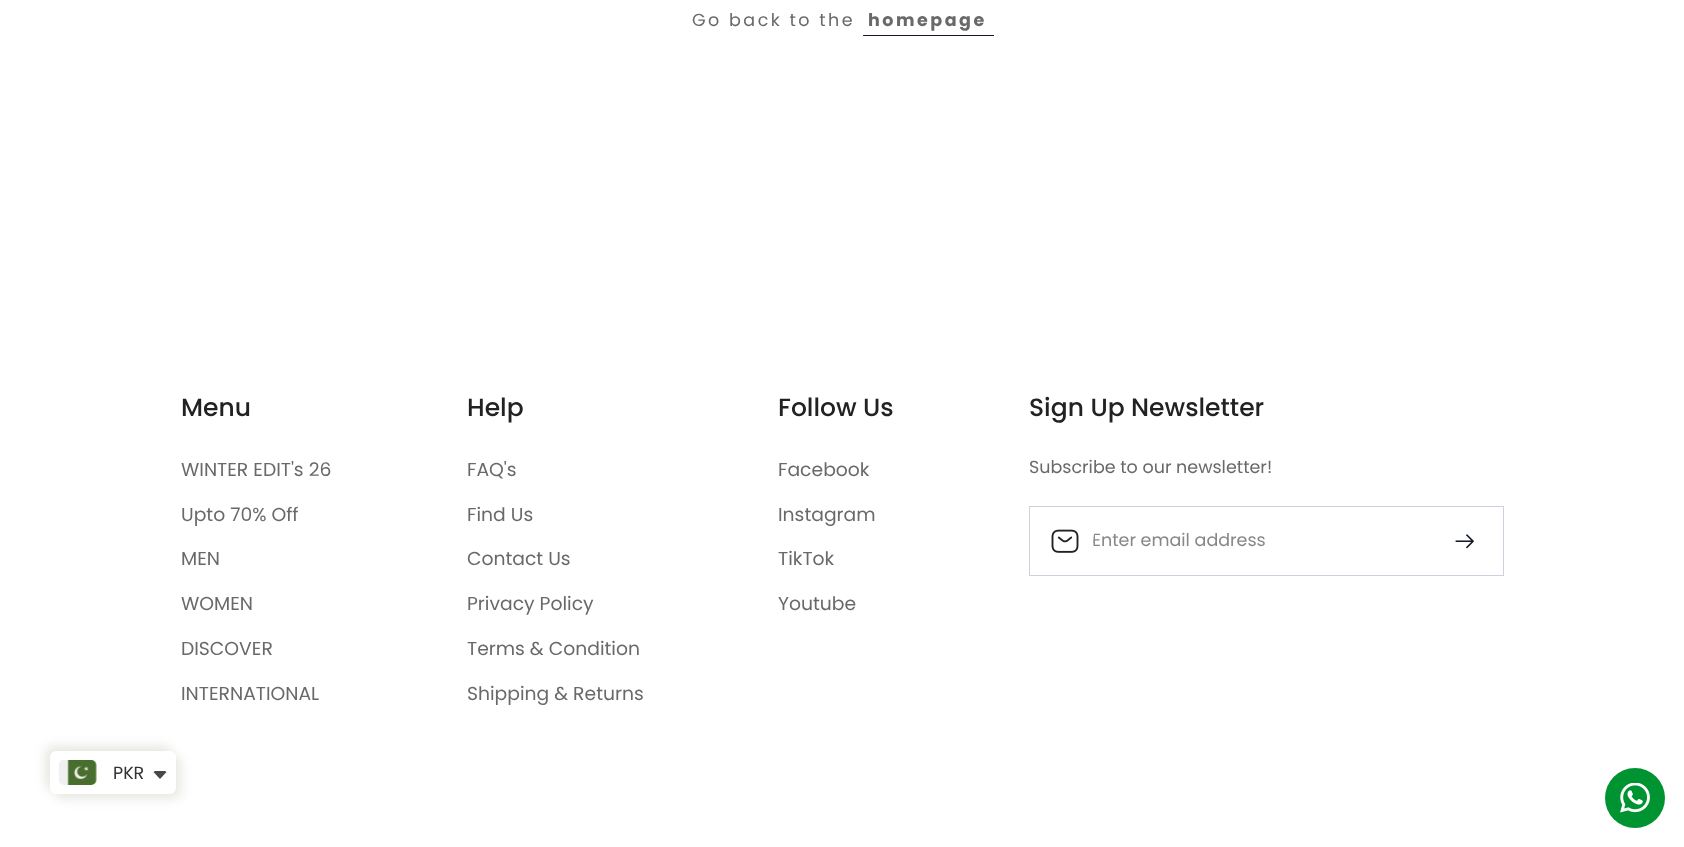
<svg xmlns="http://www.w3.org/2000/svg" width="1684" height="847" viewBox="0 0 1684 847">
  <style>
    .t1 { font: 17.5px Poppins; letter-spacing: 2.5px; fill: #696969; }
    .t2 { font: bold 17.5px Poppins; letter-spacing: 2.5px; fill: #696969; }
    .t3 { font: 500 25px Poppins; fill: #222; }
    .t4 { font: 18.75px Poppins; fill: #696969; }
    .t5 { font: 17.5px Poppins; fill: #696969; }
    .t6 { font: 17.5px Poppins; fill: #878787; }
    .t7 { font: 17.5px Poppins; fill: #333; }
  </style>
  <defs>
    <clipPath id="clip1"><rect x="1093" y="515" width="342" height="53" rx="26.5"/></clipPath>
  </defs>
  <rect width="100%" height="100%" fill="#fff"/>
  <text x="692" y="26" class="t1">Go back to the</text>
  <text x="868" y="26" class="t2">homepage</text>
  <rect x="863" y="35" width="131" height="1" fill="#131728"/>
  <text x="181" y="416" class="t3">Menu</text>
  <text x="181" y="476" class="t4">WINTER EDIT's 26</text>
  <text x="181" y="521" class="t4">Upto 70% Off</text>
  <text x="181" y="565" class="t4">MEN</text>
  <text x="181" y="610" class="t4">WOMEN</text>
  <text x="181" y="655" class="t4">DISCOVER</text>
  <text x="181" y="700" class="t4">INTERNATIONAL</text>
  <text x="467" y="416" class="t3">Help</text>
  <text x="467" y="476" class="t4">FAQ's</text>
  <text x="467" y="521" class="t4">Find Us</text>
  <text x="467" y="565" class="t4">Contact Us</text>
  <text x="467" y="610" class="t4">Privacy Policy</text>
  <text x="467" y="655" class="t4">Terms &amp; Condition</text>
  <text x="467" y="700" class="t4">Shipping &amp; Returns</text>
  <text x="778" y="416" class="t3">Follow Us</text>
  <text x="778" y="476" class="t4">Facebook</text>
  <text x="778" y="521" class="t4">Instagram</text>
  <text x="778" y="565" class="t4">TikTok</text>
  <text x="778" y="610" class="t4">Youtube</text>
  <text x="1029" y="416" class="t3">Sign Up Newsletter</text>
  <text x="1029" y="473" class="t5">Subscribe to our newsletter!</text>
  <rect x="1029.5" y="506.5" width="474" height="69" fill="none" stroke="#cdd0dd"/>
  <image x="1051" y="529" width="28" height="24" href="images/1.png"/>
  <g clip-path="url(#clip1)">
    <text x="1092" y="546" class="t6">Enter email address</text>
  </g>
  <image x="1455" y="534" width="19" height="15" href="images/2.png"/>
  <rect x="45" y="746" width="126" height="43" rx="6" fill="#e8e8e2" filter="blur(5.5px)"/>
  <rect x="55" y="756" width="126" height="43" rx="6" fill="#e8e8e2" filter="blur(5.5px)"/>
  <rect x="50" y="751" width="126" height="43" rx="6" fill="#fff"/>
  <image x="58" y="760" width="39" height="25" href="images/3.png"/>
  <text x="113" y="779" class="t7">PKR</text>
  <path d="M153.5 772L155 771H165L166.5 772L160 779Z" fill="#474942"/>
  <circle cx="1635" cy="798" r="30" fill="#009331"/>
  <image x="1620" y="783" width="30" height="30" href="images/4.png"/>
</svg>
